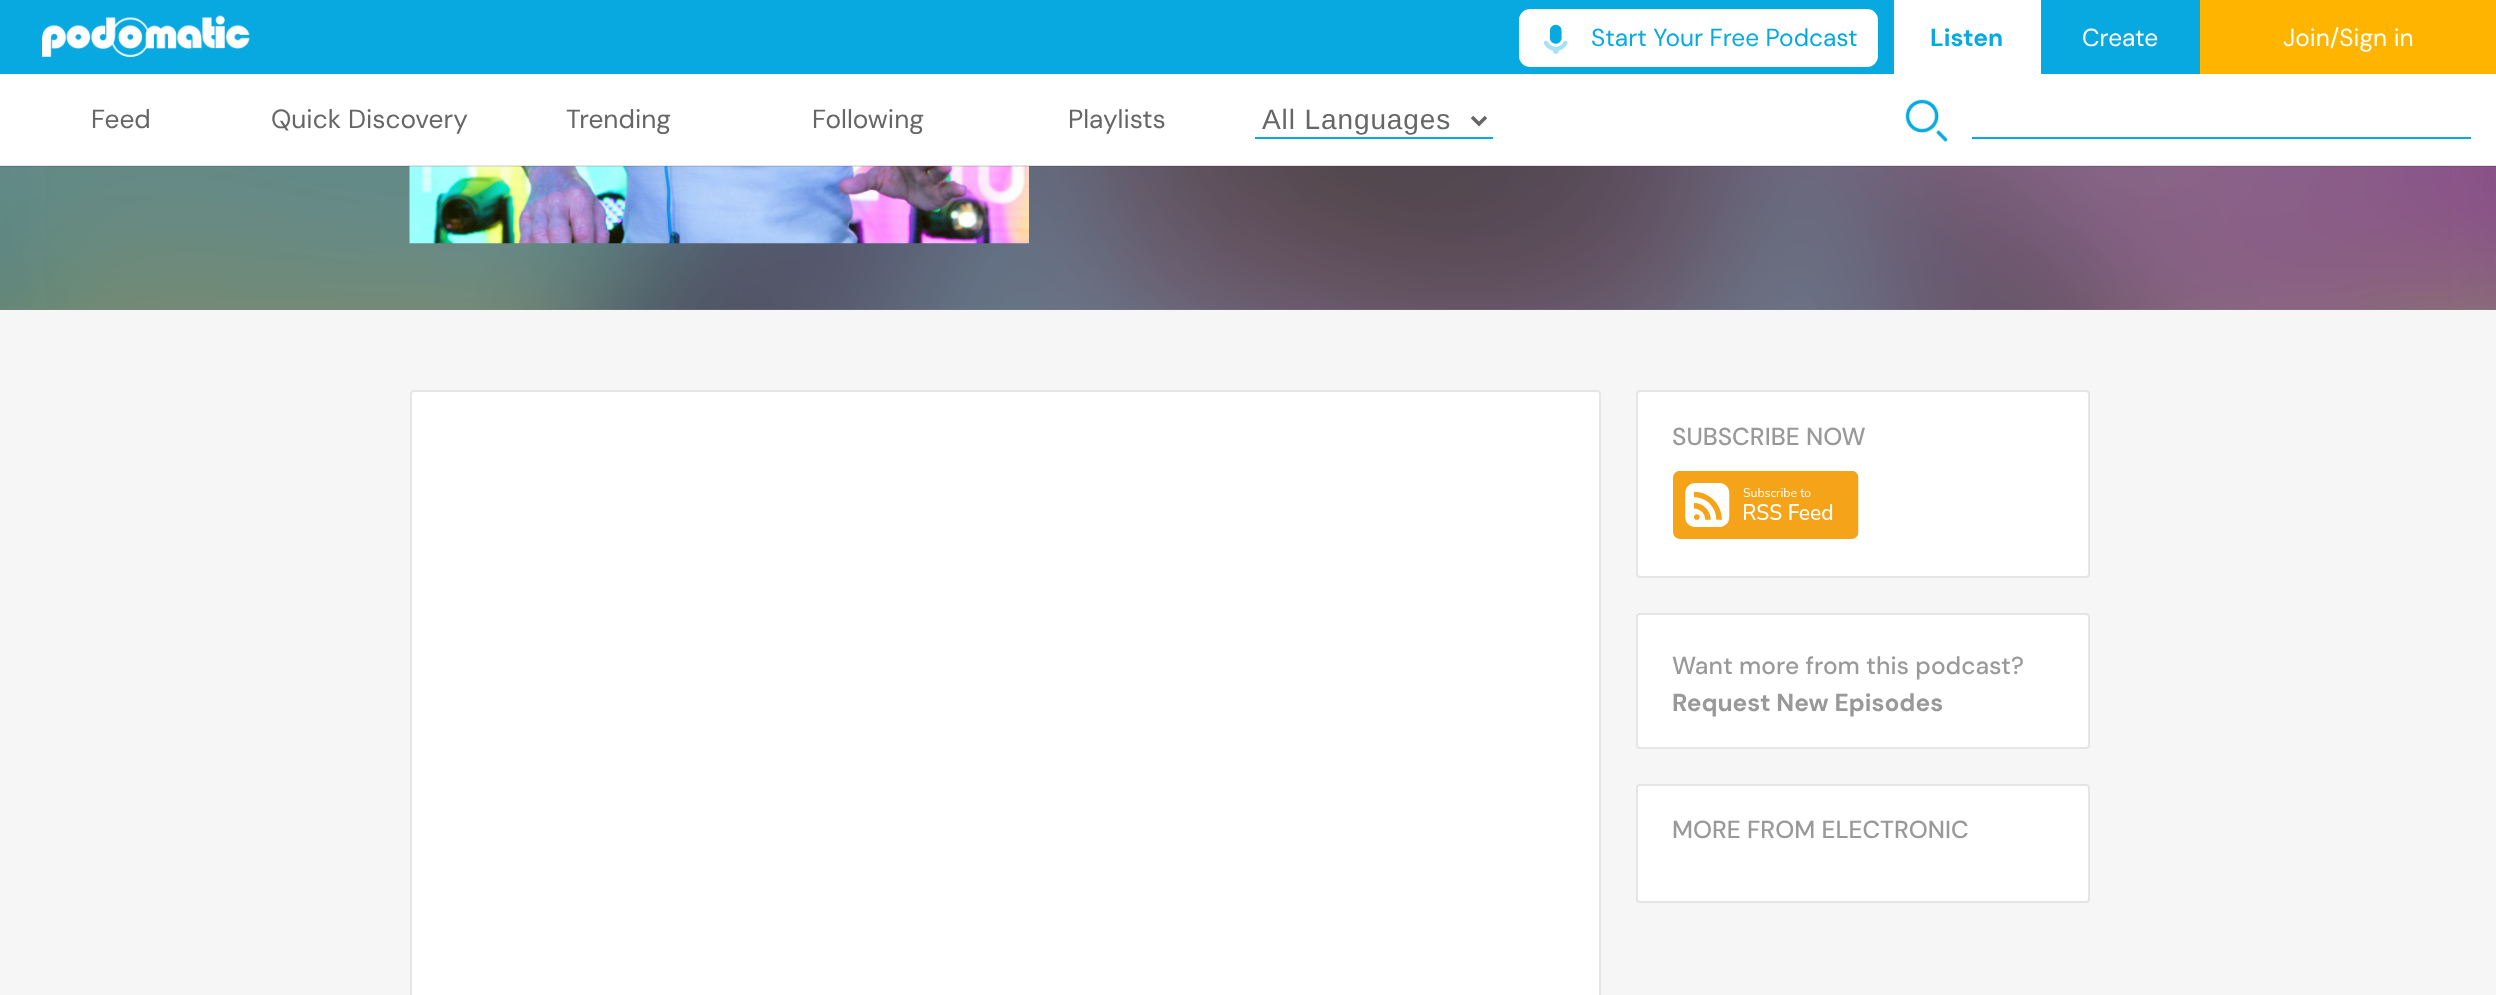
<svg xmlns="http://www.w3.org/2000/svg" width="2496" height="995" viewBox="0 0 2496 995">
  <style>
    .t1 { font: 24.5px DM Sans; fill: #07a9e0; }
    .t2 { font: bold 24.5px DM Sans; fill: #07a9e0; }
    .t3 { font: 24.5px DM Sans; fill: #fff; }
    .t4 { font: 26.25px DM Sans; fill: #666; }
    .t5 { font: 28px Liberation Sans; letter-spacing: 0.9px; fill: #666; }
    .t6 { font: 500 24.5px DM Sans; fill: #999; }
    .t7 { font: bold 24.5px DM Sans; fill: #999; }
  </style>
  <rect width="100%" height="100%" fill="#f6f6f6"/>
  <rect x="0" y="166" width="2496" height="144" fill="#878787"/>
  <rect x="0" y="0" width="2200" height="74" fill="#07a9e0"/>
  <image x="42" y="15" width="208" height="43" href="images/1.png"/>
  <rect x="1520" y="10" width="357" height="56" rx="10" fill="#fff" stroke="#fff" stroke-width="2"/>
  <image x="1544" y="24" width="24" height="30" href="images/2.png"/>
  <text x="1591" y="46" class="t1">Start Your Free Podcast</text>
  <rect x="1894" y="0" width="147" height="74" fill="#fff"/>
  <text x="1930" y="46" class="t2">Listen</text>
  <text x="2082" y="46" class="t3">Create</text>
  <rect x="2200" y="0" width="296" height="74" fill="#ffb400"/>
  <text x="2283" y="46" class="t3">Join/Sign in</text>
  <rect x="0" y="74" width="2496" height="92" fill="#fff"/>
  <image x="0" y="166" width="2496" height="144" href="images/4.png"/>
  <image x="409" y="166" width="620" height="78" href="images/5.png"/>
  <rect x="0" y="165" width="2496" height="2" fill="#0000001a"/>
  <text x="91" y="128" class="t4">Feed</text>
  <text x="271" y="128" class="t4">Quick Discovery</text>
  <text x="566" y="128" class="t4">Trending</text>
  <text x="812" y="128" class="t4">Following</text>
  <text x="1068" y="128" class="t4">Playlists</text>
  <rect x="1255" y="137" width="238" height="2" fill="#07a9e0"/>
  <path d="M1472 117L1479 124L1486 117" fill="none" stroke="#666" stroke-width="3.5"/>
  <text x="1262" y="129" class="t5">All Languages</text>
  <image x="1905" y="99" width="43" height="43" href="images/3.png"/>
  <rect x="1972" y="137" width="499" height="2" fill="#07a9e0"/>
  <rect x="411" y="391" width="1189" height="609" rx="3" fill="#fff" stroke="#e5e5e5" stroke-width="2"/>
  <rect x="1637" y="391" width="452" height="186" rx="3" fill="#fff" stroke="#e5e5e5" stroke-width="2"/>
  <text x="1672" y="445" class="t6">SUBSCRIBE NOW</text>
  <image x="1673" y="471" width="186" height="68" href="images/6.png"/>
  <rect x="1637" y="614" width="452" height="134" rx="3" fill="#fff" stroke="#e5e5e5" stroke-width="2"/>
  <text x="1672" y="674" class="t6">Want more from this podcast?</text>
  <text x="1672" y="711" class="t7">Request New Episodes</text>
  <rect x="1637" y="785" width="452" height="117" rx="3" fill="#fff" stroke="#e5e5e5" stroke-width="2"/>
  <text x="1672" y="838" class="t6">MORE FROM ELECTRONIC</text>
</svg>
